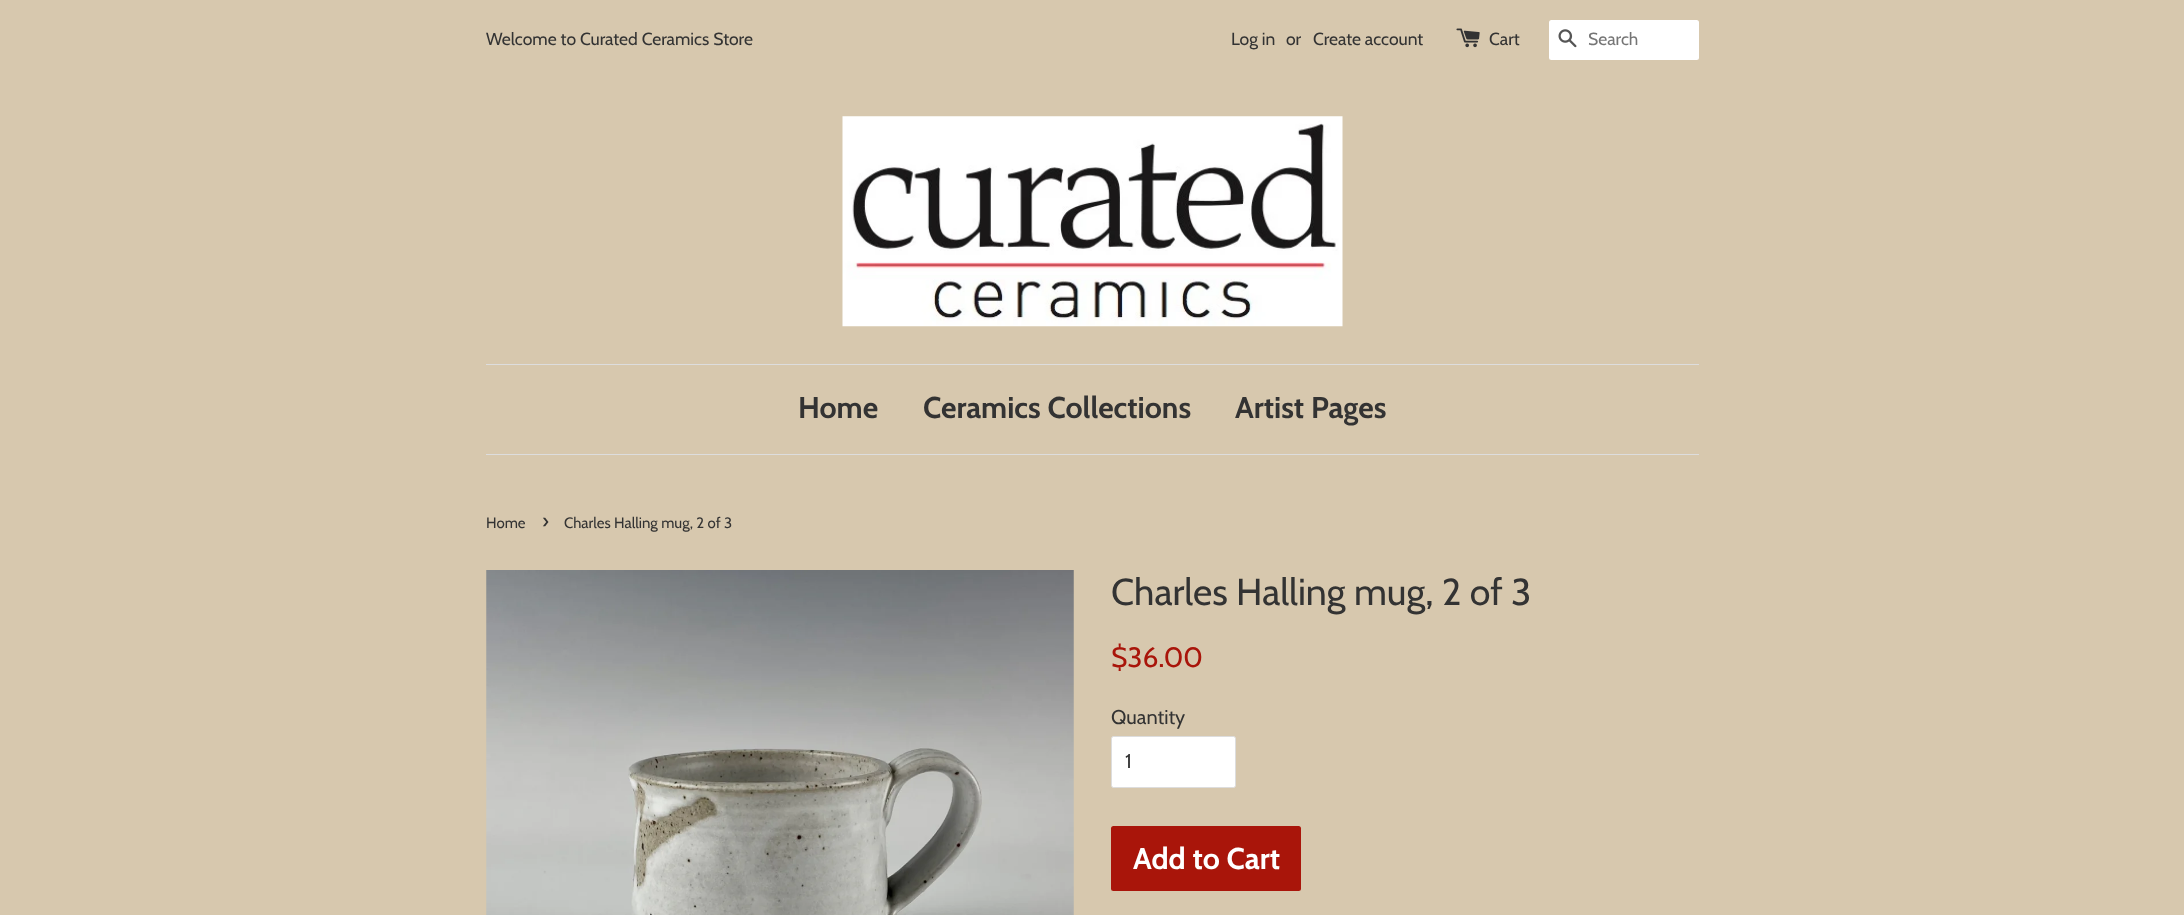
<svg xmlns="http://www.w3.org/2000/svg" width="2184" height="915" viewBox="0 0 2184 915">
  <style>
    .t1 { font: 17.5px Cabin; fill: #333; }
    .t2 { font: 17.5px Cabin; fill: #757575; }
    .t3 { font: bold 30px Cabin; fill: #333; }
    .t4 { font: 15px Cabin; fill: #333; }
    .t5 { font: 21px Cabin; fill: #333; }
    .t6 { font: 37.5px Cabin; fill: #333; }
    .t7 { font: 28px Cabin; fill: #a9150a; }
    .t8 { font: 20px Cabin; fill: #333; }
    .t9 { font: bold 30px Cabin; fill: #fff; }
  </style>
  <rect width="100%" height="100%" fill="#d7c8ae"/>
  <text x="486" y="45" class="t1">Welcome to Curated Ceramics Store</text>
  <text x="1231" y="45" class="t1">Log in</text>
  <text x="1286" y="45" class="t1">or</text>
  <text x="1313" y="45" class="t1">Create account</text>
  <image x="1456" y="28" width="24" height="20" href="images/1.png"/>
  <text x="1489" y="45" class="t1">Cart</text>
  <rect x="1549" y="20" width="150" height="40" rx="2.5" fill="#fff"/>
  <image x="1558" y="29" width="19" height="19" href="images/2.png"/>
  <text x="1588" y="45" class="t2">Search</text>
  <image x="842" y="116" width="501" height="211" href="images/3.png"/>
  <rect x="486" y="364" width="1213" height="1" fill="#ddd"/>
  <rect x="486" y="454" width="1213" height="1" fill="#ddd"/>
  <text x="798" y="418" class="t3">Home</text>
  <text x="923" y="418" class="t3">Ceramics Collections</text>
  <text x="1235" y="418" class="t3">Artist Pages</text>
  <text x="486" y="528" class="t4">Home</text>
  <text x="542" y="528" class="t5">›</text>
  <text x="564" y="528" class="t4">Charles Halling mug, 2 of 3</text>
  <image x="486" y="570" width="588" height="345" href="images/4.png"/>
  <text x="1111" y="605" class="t6">Charles Halling mug, 2 of 3</text>
  <text x="1111" y="667" class="t7">$36.00</text>
  <text x="1111" y="724" class="t8">Quantity</text>
  <rect x="1111.5" y="736.5" width="124" height="51" rx="2" fill="#fff" stroke="#ddd"/>
  <text x="1125" y="768" class="t8">1</text>
  <rect x="1111" y="826" width="190" height="65" rx="2.5" fill="#a9150a"/>
  <text x="1133" y="869" class="t9">Add to Cart</text>
</svg>
